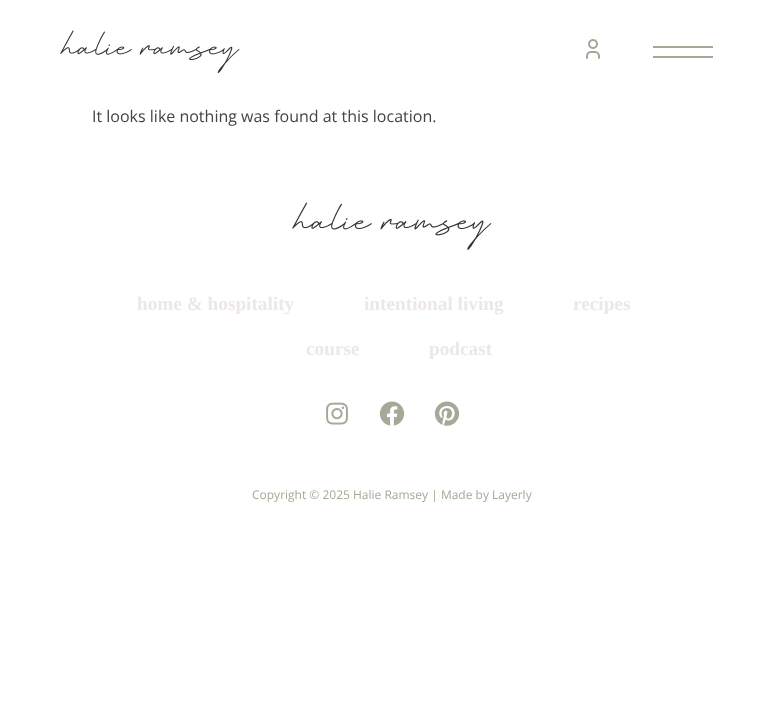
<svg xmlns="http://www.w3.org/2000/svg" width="783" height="726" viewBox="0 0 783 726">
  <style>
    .t1 { font: 16px Open Sans; fill: #444; }
    .t2 { font: bold 19.25px Liberation Serif; fill: #ede7e7; }
    .t3 { font: 12px Open Sans; fill: #a6a998; }
  </style>
  <rect width="100%" height="100%" fill="#fff"/>
  <image x="60" y="30" width="180" height="43" href="images/1.png"/>
  <image x="586" y="39" width="14" height="20" href="images/2.png"/>
  <rect x="653" y="56" width="60" height="2" fill="#a6a998"/>
  <rect x="653" y="46" width="60" height="2" fill="#a6a998"/>
  <text x="92" y="122" class="t1">It looks like nothing was found at this location.</text>
  <image x="292" y="202" width="200" height="48" href="images/3.png"/>
  <text x="137" y="310" class="t2">home &amp; hospitality</text>
  <text x="364" y="310" class="t2">intentional living</text>
  <text x="573" y="310" class="t2">recipes</text>
  <text x="306" y="355" class="t2">course</text>
  <text x="429" y="355" class="t2">podcast</text>
  <image x="326" y="402" width="22" height="23" href="images/4.png"/>
  <image x="379" y="401" width="26" height="25" href="images/5.png"/>
  <image x="434" y="401" width="26" height="25" href="images/6.png"/>
  <text x="252" y="499" class="t3">Copyright © 2025 Halie Ramsey | Made by Layerly</text>
</svg>
